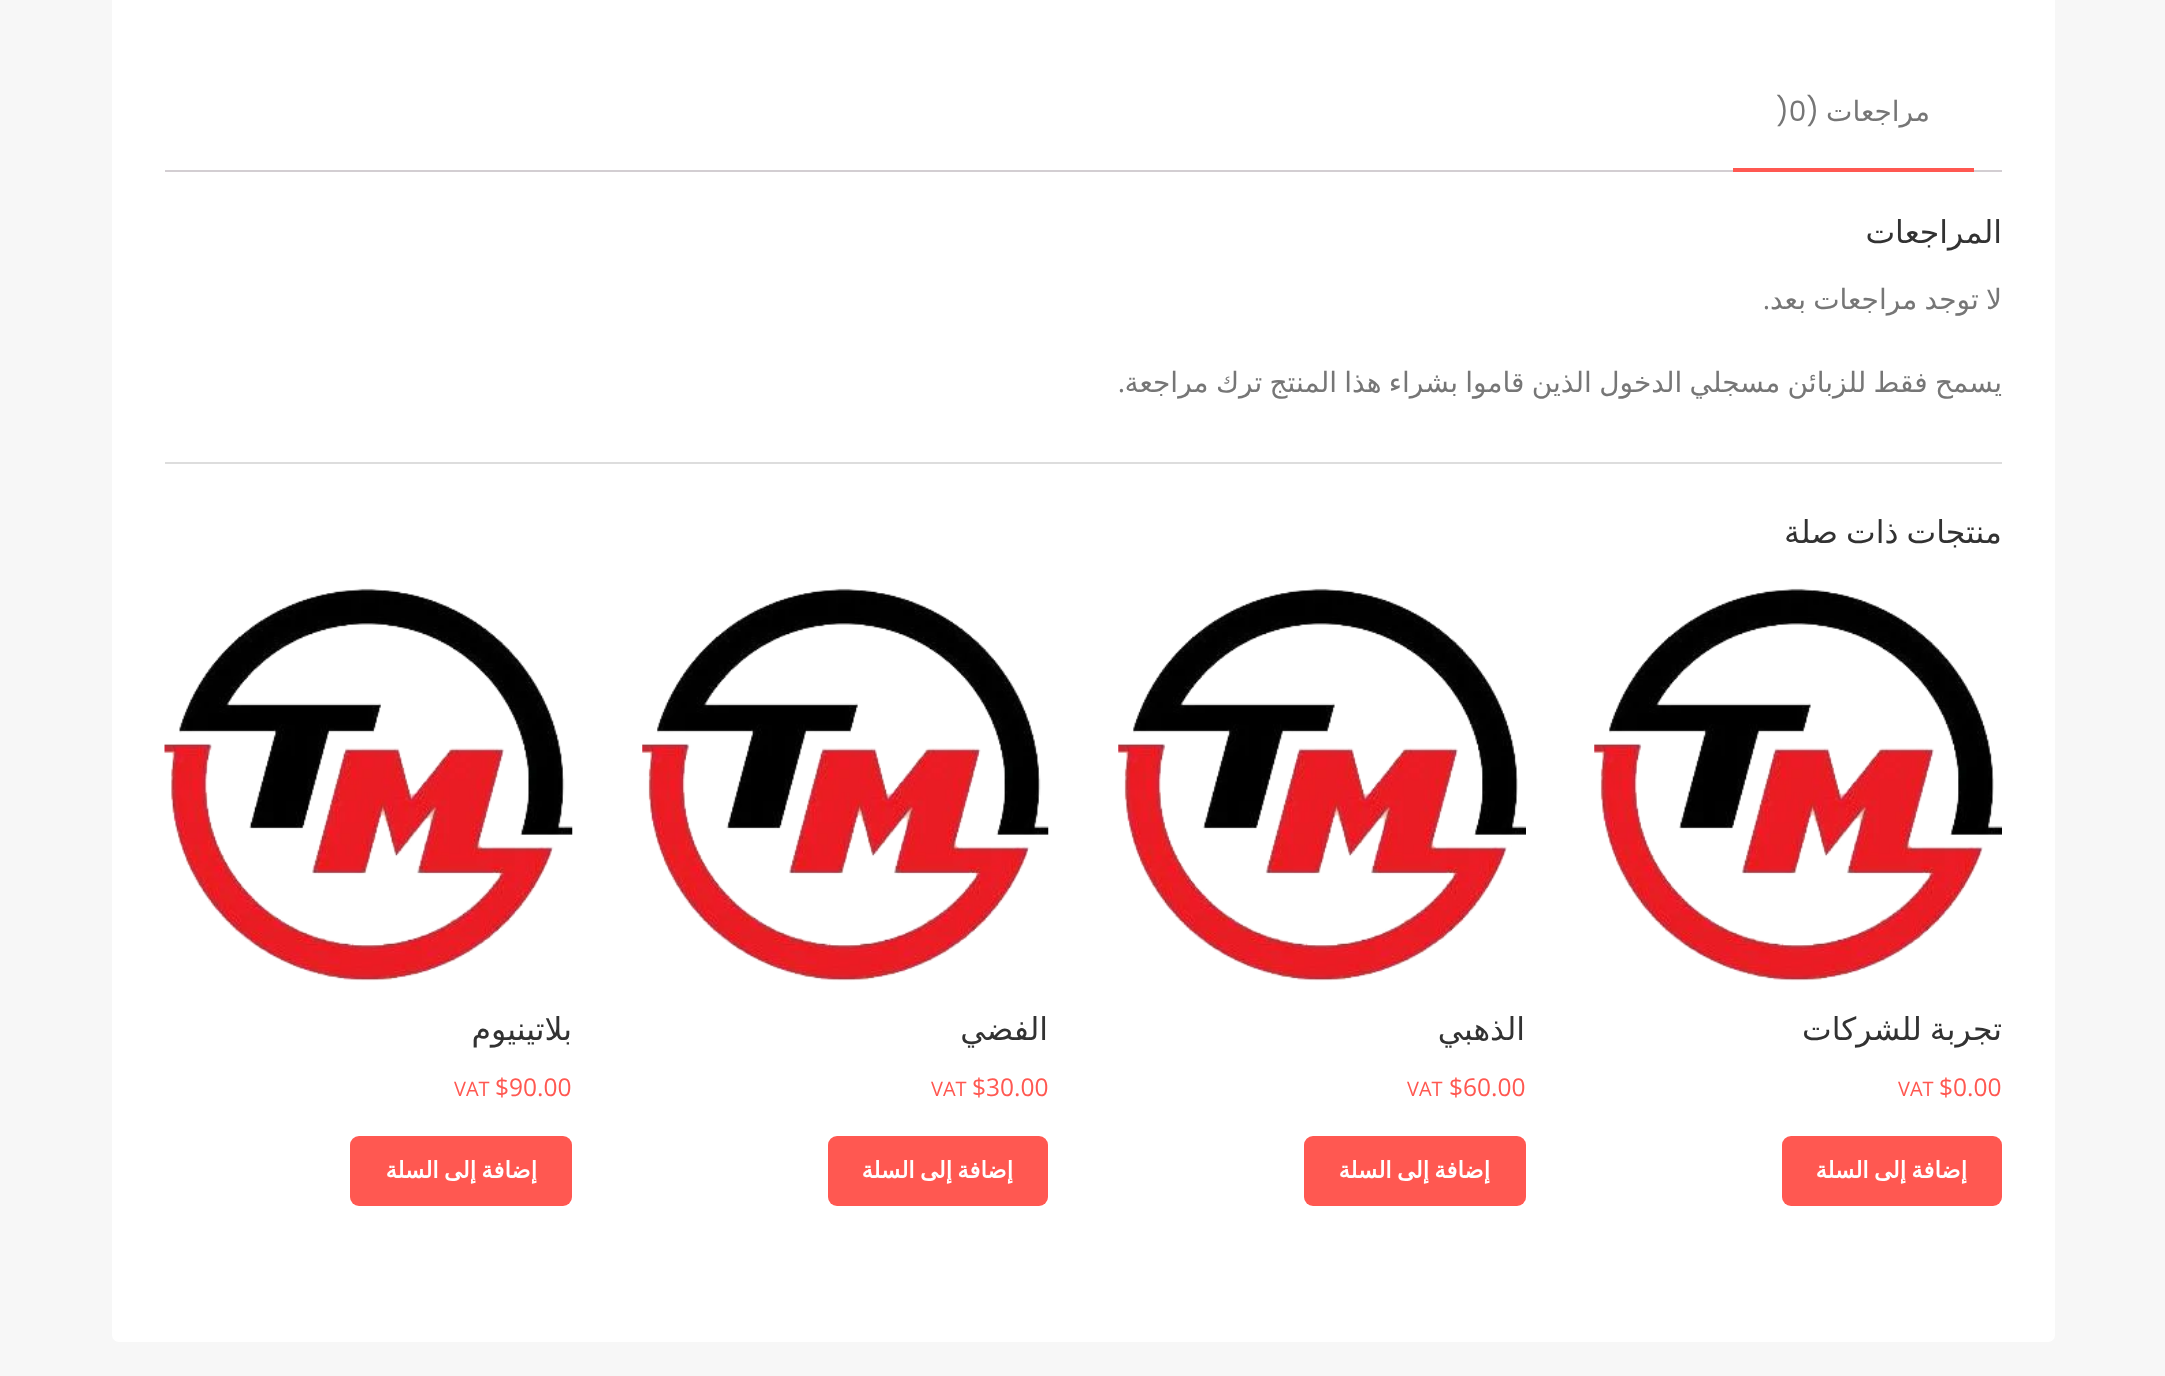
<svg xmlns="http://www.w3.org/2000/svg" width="2165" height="1376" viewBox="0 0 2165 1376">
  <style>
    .t1 { font: 28px DejaVu Sans; direction: rtl; fill: #767676; }
    .t2 { font: 28px Poppins; direction: rtl; fill: #767676; }
    .t3 { font: 28px Poppins; fill: #767676; }
    .t4 { font: 31.5px DejaVu Sans; direction: rtl; fill: #323232; }
    .t5 { font: 28px Open Sans; direction: rtl; fill: #767676; }
    .t6 { font: 24.5px Open Sans; fill: #ff5851; }
    .t7 { font: 20px Open Sans; fill: #ff5851; }
    .t8 { font: bold 22.75px DejaVu Sans; direction: rtl; fill: #fff; }
  </style>
  <rect width="100%" height="100%" fill="#f7f7f7"/>
  <rect x="112" y="-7" width="1943" height="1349" rx="7" fill="#fff"/>
  <rect x="165" y="170" width="1837" height="2" fill="#d3ced2"/>
  <path d="M1740 53H1967C1971 53 1974 56 1974 60V172H1733V60C1733 56 1736 53 1740 53Z" fill="#fff"/>
  <text x="1930" y="121" class="t1">مراجعات</text>
  <text x="1819" y="121" class="t2">(</text>
  <text x="1776" y="121" class="t3">)0</text>
  <rect x="1733" y="168" width="241" height="4" fill="#ff5851"/>
  <text x="2002" y="243" class="t4">المراجعات</text>
  <text x="2002" y="309" word-spacing="-1.6" class="t1">لا توجد مراجعات بعد</text>
  <text x="1770" y="309" class="t5">.</text>
  <text x="2002" y="392" word-spacing="-1.6" class="t1">يسمح فقط للزبائن مسجلي الدخول الذين قاموا بشراء هذا المنتج ترك مراجعة</text>
  <text x="1125" y="392" class="t5">.</text>
  <rect x="165" y="462" width="1837" height="2" fill="#ddd"/>
  <text x="2002" y="543" word-spacing="-2" class="t4">منتجات ذات صلة</text>
  <image x="1594" y="588" width="408" height="393" href="images/1.png"/>
  <text x="2002" y="1040" word-spacing="-2" class="t4">تجربة للشركات</text>
  <text x="1939" y="1096" class="t6">$0.00</text>
  <text x="1898" y="1096" class="t7">VAT</text>
  <rect x="1782" y="1136" width="220" height="70" rx="9" fill="#ff5851"/>
  <text x="1967" y="1178" word-spacing="-2" class="t8">إضافة إلى السلة</text>
  <image x="1118" y="588" width="408" height="393" href="images/1.png"/>
  <text x="1525" y="1040" class="t4">الذهبي</text>
  <text x="1449" y="1096" class="t6">$60.00</text>
  <text x="1407" y="1096" class="t7">VAT</text>
  <rect x="1304" y="1136" width="222" height="70" rx="9" fill="#ff5851"/>
  <text x="1490" y="1178" word-spacing="-2" class="t8">إضافة إلى السلة</text>
  <image x="642" y="588" width="407" height="393" href="images/2.png"/>
  <text x="1048" y="1040" class="t4">الفضي</text>
  <text x="972" y="1096" class="t6">$30.00</text>
  <text x="931" y="1096" class="t7">VAT</text>
  <rect x="828" y="1136" width="220" height="70" rx="9" fill="#ff5851"/>
  <text x="1013" y="1178" word-spacing="-2" class="t8">إضافة إلى السلة</text>
  <image x="164" y="588" width="409" height="393" href="images/3.png"/>
  <text x="572" y="1040" class="t4">بلاتينيوم</text>
  <text x="495" y="1096" class="t6">$90.00</text>
  <text x="454" y="1096" class="t7">VAT</text>
  <rect x="350" y="1136" width="222" height="70" rx="9" fill="#ff5851"/>
  <text x="537" y="1178" word-spacing="-2" class="t8">إضافة إلى السلة</text>
</svg>
